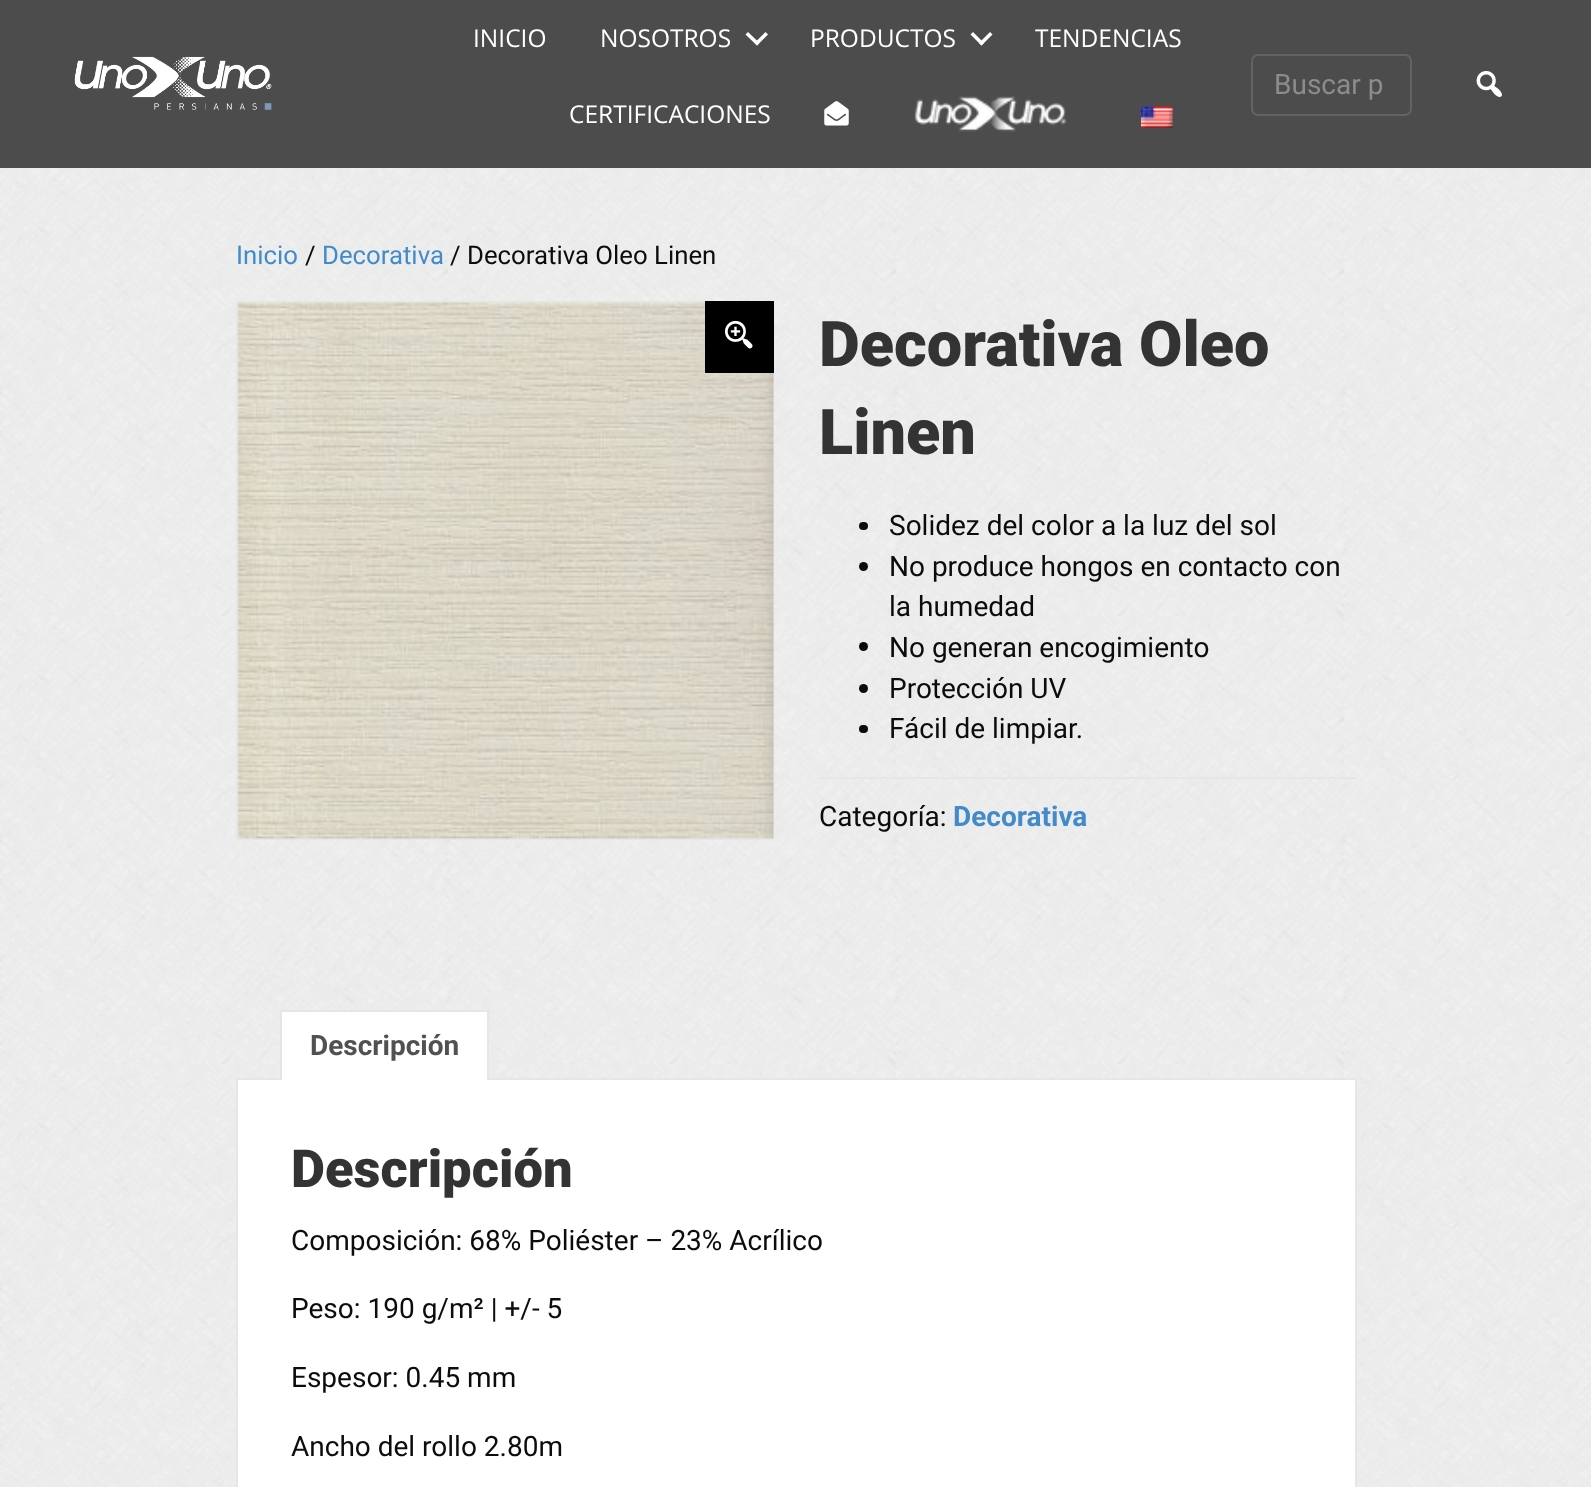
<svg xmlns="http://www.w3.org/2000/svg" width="1591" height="1487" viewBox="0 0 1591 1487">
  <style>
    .t1 { font: 24.5px Open Sans; fill: #fff; }
    .t2 { font: 28px Roboto; fill: #8c8c8c; }
    .t3 { font: 25.75px Roboto; fill: #428bca; }
    .t4 { font: 25.75px Roboto; fill: #0c0c0c; }
    .t5 { font: 900 63px Roboto; fill: #333; }
    .t6 { font: 28px Roboto; fill: #0c0c0c; }
    .t7 { font: bold 28px Roboto; fill: #428bca; }
    .t8 { font: bold 28px Roboto; fill: #515151; }
    .t9 { font: 900 52.5px Roboto; fill: #333; }
  </style>
  <defs>
    <clipPath id="clip1"><rect x="236" y="301" width="538" height="539"/></clipPath>
  </defs>
  <rect width="100%" height="100%" fill="#fff"/>
  <rect x="0" y="0" width="1591" height="168" fill="#4c4c4c"/>
  <image x="74" y="56" width="198" height="54" href="images/1.png"/>
  <text x="473" y="47" class="t1">INICIO</text>
  <text x="600" y="47" class="t1">NOSOTROS</text>
  <path d="M765.5 32L768 34.5L757 45.5L754.5 43Z" fill="#fff"/>
  <path d="M748 32L759.5 43L757 45.5L745.5 34.5Z" fill="#fff"/>
  <text x="810" y="47" class="t1">PRODUCTOS</text>
  <path d="M990 32L992.5 34.5L981.5 45.5L979 43Z" fill="#fff"/>
  <path d="M973 32L984 43L981.5 45.5L970.5 34.5Z" fill="#fff"/>
  <text x="1035" y="47" class="t1">TENDENCIAS</text>
  <text x="569" y="123" class="t1">CERTIFICACIONES</text>
  <image x="824" y="101" width="25" height="25" href="images/2.png"/>
  <image x="914" y="96" width="153" height="36" href="images/3.png"/>
  <image x="1141" y="106" width="32" height="22" href="images/4.png"/>
  <rect x="1252" y="55" width="159" height="60" rx="6" fill="none" stroke="#636363" stroke-width="2"/>
  <text x="1274" y="94" class="t2">Buscar p</text>
  <image x="1476" y="71" width="26" height="26" href="images/5.png"/>
  <image x="0" y="168" width="1591" height="1319" href="images/6.png"/>
  <text x="236" y="264" class="t3">Inicio</text>
  <text x="305" y="264" class="t4">/</text>
  <text x="322" y="264" class="t3">Decorativa</text>
  <text x="450" y="264" class="t4">/ Decorativa Oleo Linen</text>
  <g clip-path="url(#clip1)">
    <rect x="237" y="302" width="537" height="537" fill="none" stroke="#e6e6e6" stroke-width="2"/>
  </g>
  <image x="237" y="302" width="537" height="537" href="images/7.png"/>
  <rect x="705" y="301" width="69" height="72" fill="#000"/>
  <image x="724" y="320" width="29" height="29" href="images/8.png"/>
  <text x="819" y="366" class="t5">Decorativa Oleo</text>
  <text x="819" y="454" class="t5">Linen</text>
  <rect x="859" y="522" width="9" height="8" rx="4" fill="#0c0c0c"/>
  <text x="889" y="535" class="t6">Solidez del color a la luz del sol</text>
  <circle cx="863.5" cy="566.5" r="4.5" fill="#0c0c0c"/>
  <text x="889" y="576" class="t6">No produce hongos en contacto con</text>
  <text x="889" y="616" class="t6">la humedad</text>
  <circle cx="863.5" cy="646.5" r="4.5" fill="#0c0c0c"/>
  <text x="889" y="657" class="t6">No generan encogimiento</text>
  <circle cx="863.5" cy="688.5" r="4.5" fill="#0c0c0c"/>
  <text x="889" y="698" class="t6">Protección UV</text>
  <rect x="859" y="725" width="9" height="8" rx="4" fill="#0c0c0c"/>
  <text x="889" y="738" class="t6">Fácil de limpiar.</text>
  <rect x="819" y="777" width="537" height="2" fill="#e6e6e6"/>
  <text x="819" y="826" class="t6">Categoría:</text>
  <text x="953" y="826" class="t7">Decorativa</text>
  <rect x="236" y="1078" width="1120" height="2" fill="#e6e6e6"/>
  <rect x="282" y="1012" width="205" height="68" fill="#fff"/>
  <rect x="280" y="1010" width="208" height="2" fill="#e6e6e6"/>
  <rect x="487" y="1010" width="2" height="70" fill="#e6e6e6"/>
  <rect x="280" y="1010" width="2" height="70" fill="#e6e6e6"/>
  <text x="310" y="1055" class="t8">Descripción</text>
  <rect x="238" y="1080" width="1117" height="407" fill="#fff"/>
  <rect x="1355" y="1080" width="2" height="407" fill="#e6e6e6"/>
  <rect x="236" y="1080" width="2" height="407" fill="#e6e6e6"/>
  <text x="291" y="1187" class="t9">Descripción</text>
  <text x="291" y="1250" class="t6">Composición: 68% Poliéster – 23% Acrílico</text>
  <text x="291" y="1318" class="t6">Peso: 190 g/m² | +/- 5</text>
  <text x="291" y="1387" class="t6">Espesor: 0.45 mm</text>
  <text x="291" y="1456" class="t6">Ancho del rollo 2.80m</text>
</svg>
